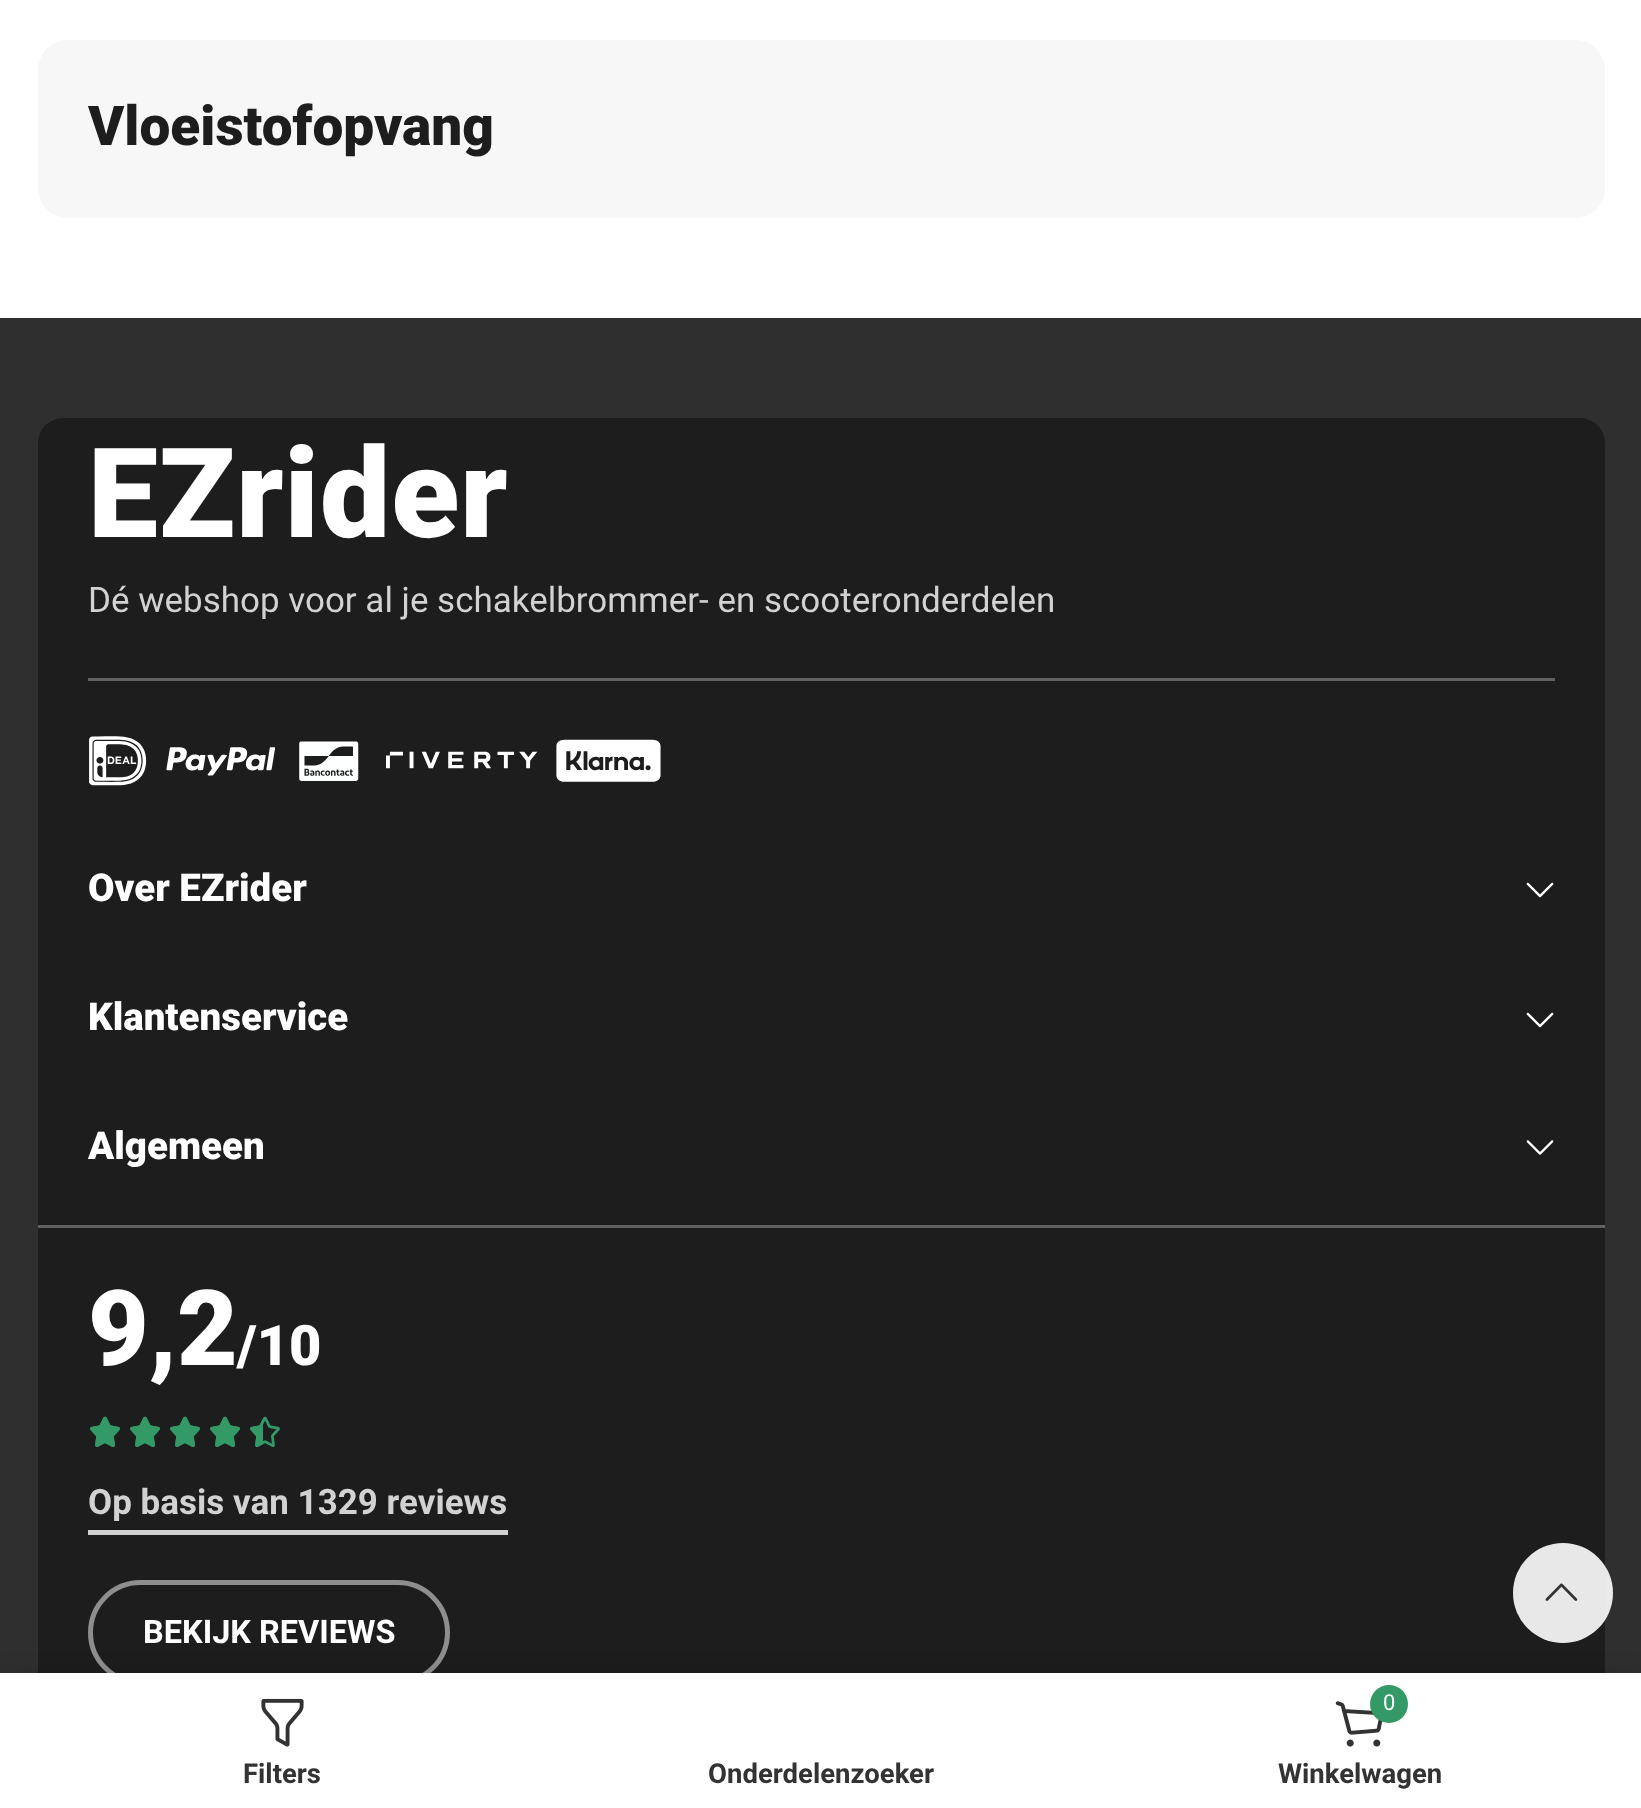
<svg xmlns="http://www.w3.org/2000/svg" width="1641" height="1808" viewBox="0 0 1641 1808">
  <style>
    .t1 { font: 900 55px Roboto; fill: #1d1d1d; }
    .t2 { font: 900 125px Roboto; letter-spacing: 1px; fill: #fff; }
    .t3 { font: 35px Roboto; fill: #d2d2d2; }
    .t4 { font: 900 38.5px Roboto; fill: #fff; }
    .t5 { font: 900 105px Roboto; fill: #fff; }
    .t6 { font: 900 56px Roboto; fill: #fff; }
    .t7 { font: bold 35px Roboto; fill: #d2d2d2; }
    .t8 { font: bold 32.5px Roboto; fill: #fff; }
    .t9 { font: bold 27.5px Roboto; fill: #333; }
    .t10 { font: 22px Roboto; fill: #fff; }
  </style>
  <rect width="100%" height="100%" fill="#fff"/>
  <rect x="38" y="40" width="1567" height="178" rx="30" fill="#f7f7f7"/>
  <text x="88" y="145" class="t1">Vloeistofopvang</text>
  <rect x="0" y="318" width="1641" height="1355" fill="#2f2f2f"/>
  <rect x="38" y="418" width="1567" height="1317" rx="25" fill="#1d1d1d"/>
  <text x="88" y="537" class="t2">EZrider</text>
  <text x="88" y="612" class="t3">Dé webshop voor al je schakelbrommer- en scooteronderdelen</text>
  <rect x="88" y="678" width="1467" height="3" fill="#616161"/>
  <image x="89" y="736" width="572" height="50" href="images/1.png"/>
  <text x="88" y="901" class="t4">Over EZrider</text>
  <image x="1526" y="882" width="28" height="16" href="images/2.png"/>
  <text x="88" y="1030" class="t4">Klantenservice</text>
  <image x="1526" y="1012" width="28" height="16" href="images/2.png"/>
  <text x="88" y="1159" class="t4">Algemeen</text>
  <image x="1526" y="1140" width="28" height="15" href="images/3.png"/>
  <rect x="38" y="1225" width="1567" height="3" fill="#616161"/>
  <text x="88" y="1365" class="t5">9,2</text>
  <text x="237" y="1365" class="t6">/10</text>
  <image x="90" y="1416" width="190" height="31" href="images/4.png"/>
  <image x="90" y="1416" width="173" height="31" href="images/5.png"/>
  <text x="88" y="1514" class="t7">Op basis van 1329 reviews</text>
  <rect x="88" y="1530" width="420" height="5" fill="#d2d2d2"/>
  <rect x="90.5" y="1582.5" width="357" height="100" rx="50" fill="none" stroke="#8e8e8e" stroke-width="5"/>
  <text x="143" y="1643" class="t8">BEKIJK REVIEWS</text>
  <circle cx="1563" cy="1593" r="50" fill="#ffffffe6"/>
  <image x="1545" y="1583" width="33" height="18" href="images/6.png"/>
  <rect x="0" y="1673" width="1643" height="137" fill="#0000001f" filter="blur(11px)"/>
  <rect x="0" y="1673" width="1641" height="135" fill="#fff"/>
  <image x="261" y="1698" width="43" height="49" href="images/7.png"/>
  <text x="243" y="1783" class="t9">Filters</text>
  <text x="708" y="1783" class="t9">Onderdelenzoeker</text>
  <image x="1335" y="1701" width="48" height="46" href="images/8.png"/>
  <circle cx="1389" cy="1704" r="19" fill="#396"/>
  <text x="1383" y="1710" class="t10">0</text>
  <text x="1278" y="1783" class="t9">Winkelwagen</text>
</svg>
